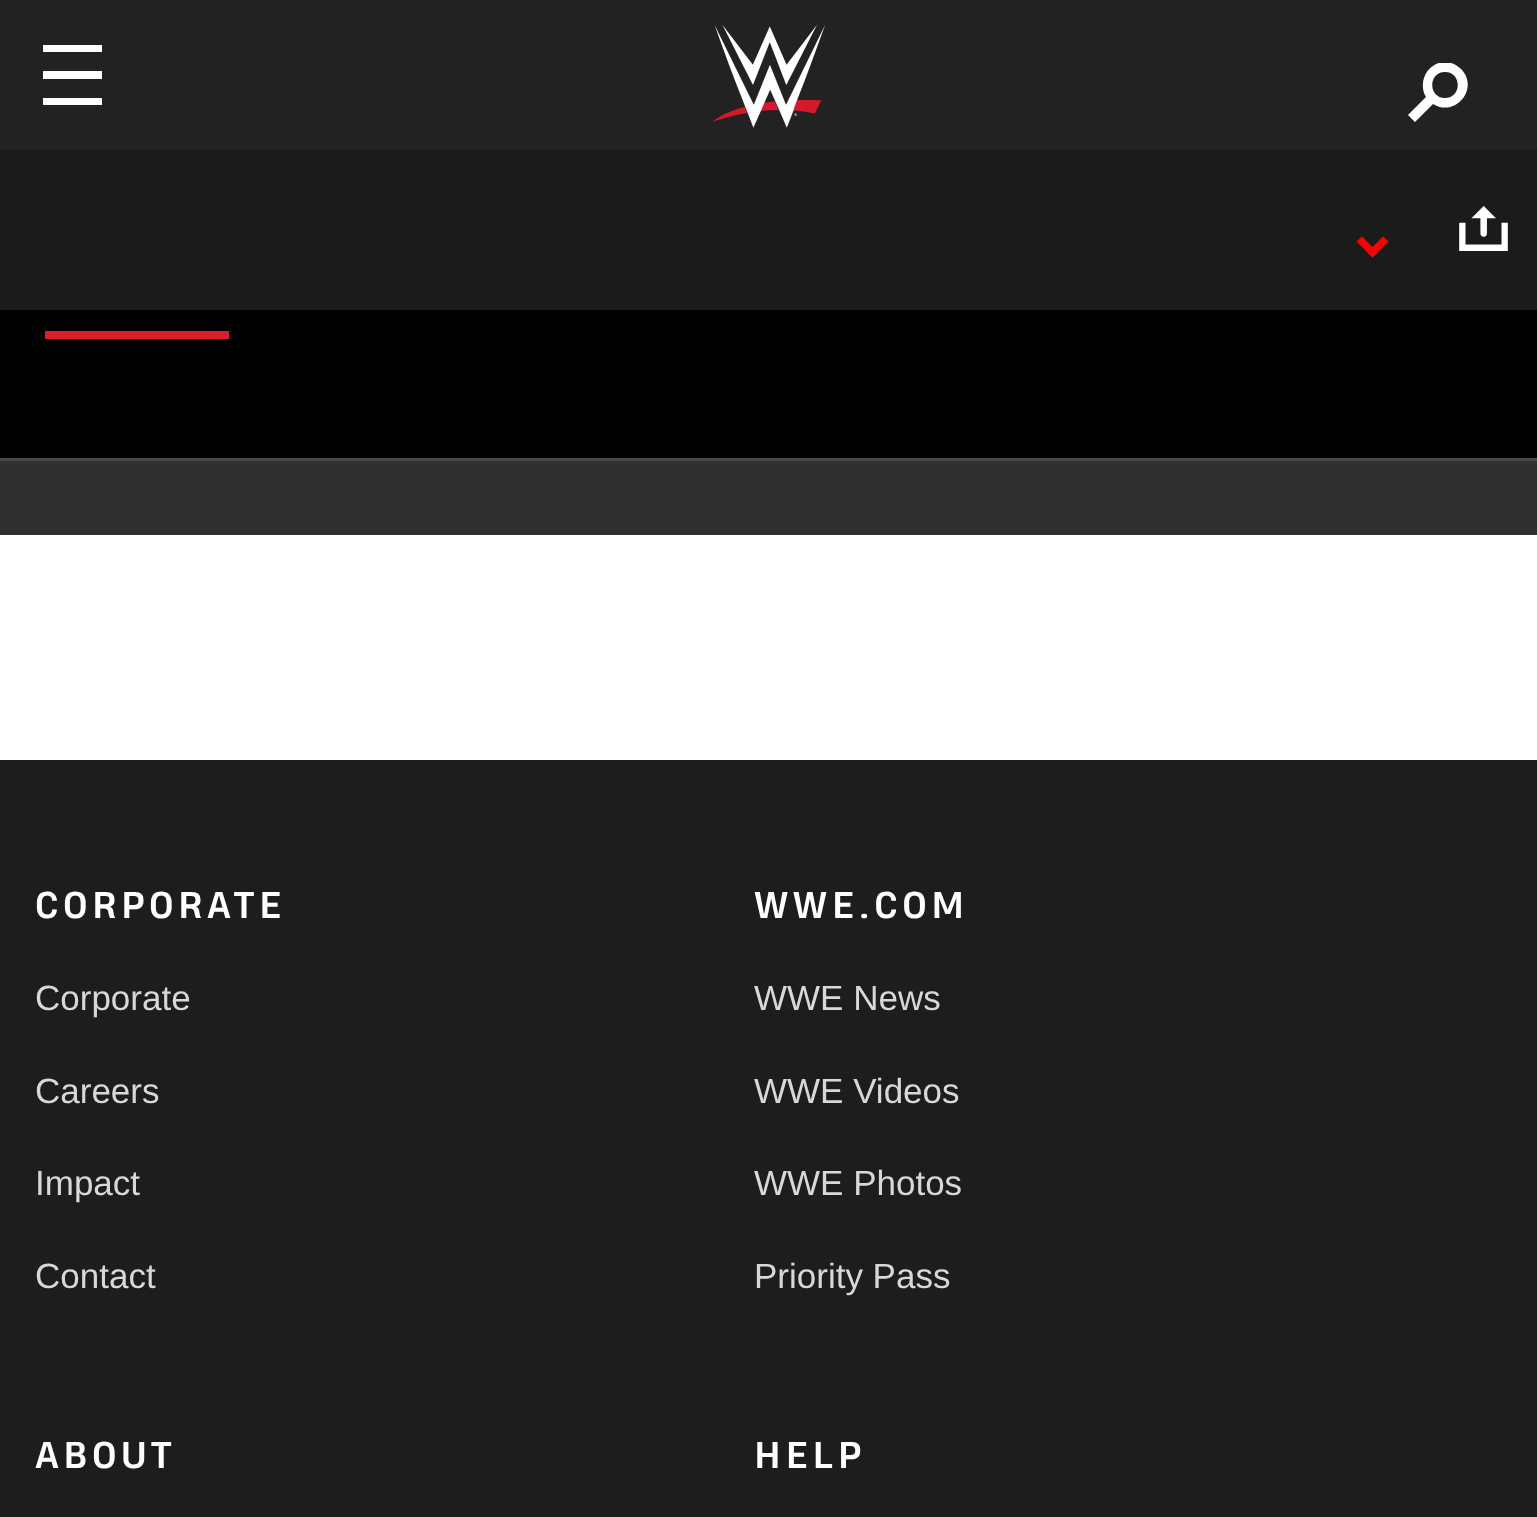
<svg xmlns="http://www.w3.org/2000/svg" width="1537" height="1517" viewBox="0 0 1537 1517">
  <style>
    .t1 { font: bold 35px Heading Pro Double; letter-spacing: 4.4px; fill: #fff; }
    .t2 { font: 35px Liberation Sans; fill: #d8d8d8; }
  </style>
  <defs>
    <clipPath id="clip1"><rect x="43" y="45" width="60" height="60"/></clipPath>
    <clipPath id="clip2"><rect x="1408" y="63" width="60" height="60"/></clipPath>
  </defs>
  <rect width="100%" height="100%" fill="#fff"/>
  <rect x="0" y="0" width="1537" height="150" fill="#222"/>
  <g clip-path="url(#clip1)">
    <path d="M46 52H42V45H102V52ZM46 79H42V71H102V79ZM46 105H42V98H102V105Z" fill="#fff" fill-rule="evenodd"/>
  </g>
  <image x="713" y="25" width="112" height="103" href="images/1.png"/>
  <g clip-path="url(#clip2)">
    <path d="M1445 62C1451 62 1457 65 1461 69C1480 88 1455 118 1433 104L1415 122L1408 115L1426 97C1417 82 1428 62 1445 62ZM1445 72C1428 72 1428 98 1445 98C1462 98 1462 72 1445 72Z" fill="#fff" fill-rule="evenodd"/>
  </g>
  <rect x="0" y="461" width="1537" height="74" fill="#303030"/>
  <rect x="0" y="150" width="1537" height="160" fill="#1b1b1b"/>
  <path d="M1383 236.5L1388.5 241.5L1372.5 257.5L1367 252.5Z" fill="#f00"/>
  <path d="M1362 236.5L1378 252.5L1372.5 257.5L1356.5 241.5Z" fill="#f00"/>
  <image x="1459" y="206" width="49" height="45" href="images/2.png"/>
  <rect x="0" y="310" width="1537" height="148" fill="#000"/>
  <rect x="0" y="458" width="1537" height="3" fill="#474747"/>
  <rect x="45" y="331" width="184" height="8" fill="#d91e2c"/>
  <rect x="0" y="760" width="1537" height="757" fill="#1d1d1d"/>
  <text x="35" y="918" class="t1">CORPORATE</text>
  <text x="35" y="1010" class="t2">Corporate</text>
  <text x="35" y="1103" class="t2">Careers</text>
  <text x="35" y="1195" class="t2">Impact</text>
  <text x="35" y="1288" class="t2">Contact</text>
  <text x="754" y="918" class="t1">WWE.COM</text>
  <text x="754" y="1010" class="t2">WWE News</text>
  <text x="754" y="1103" class="t2">WWE Videos</text>
  <text x="754" y="1195" class="t2">WWE Photos</text>
  <text x="754" y="1288" class="t2">Priority Pass</text>
  <text x="35" y="1468" class="t1">ABOUT</text>
  <text x="754" y="1468" class="t1">HELP</text>
</svg>
